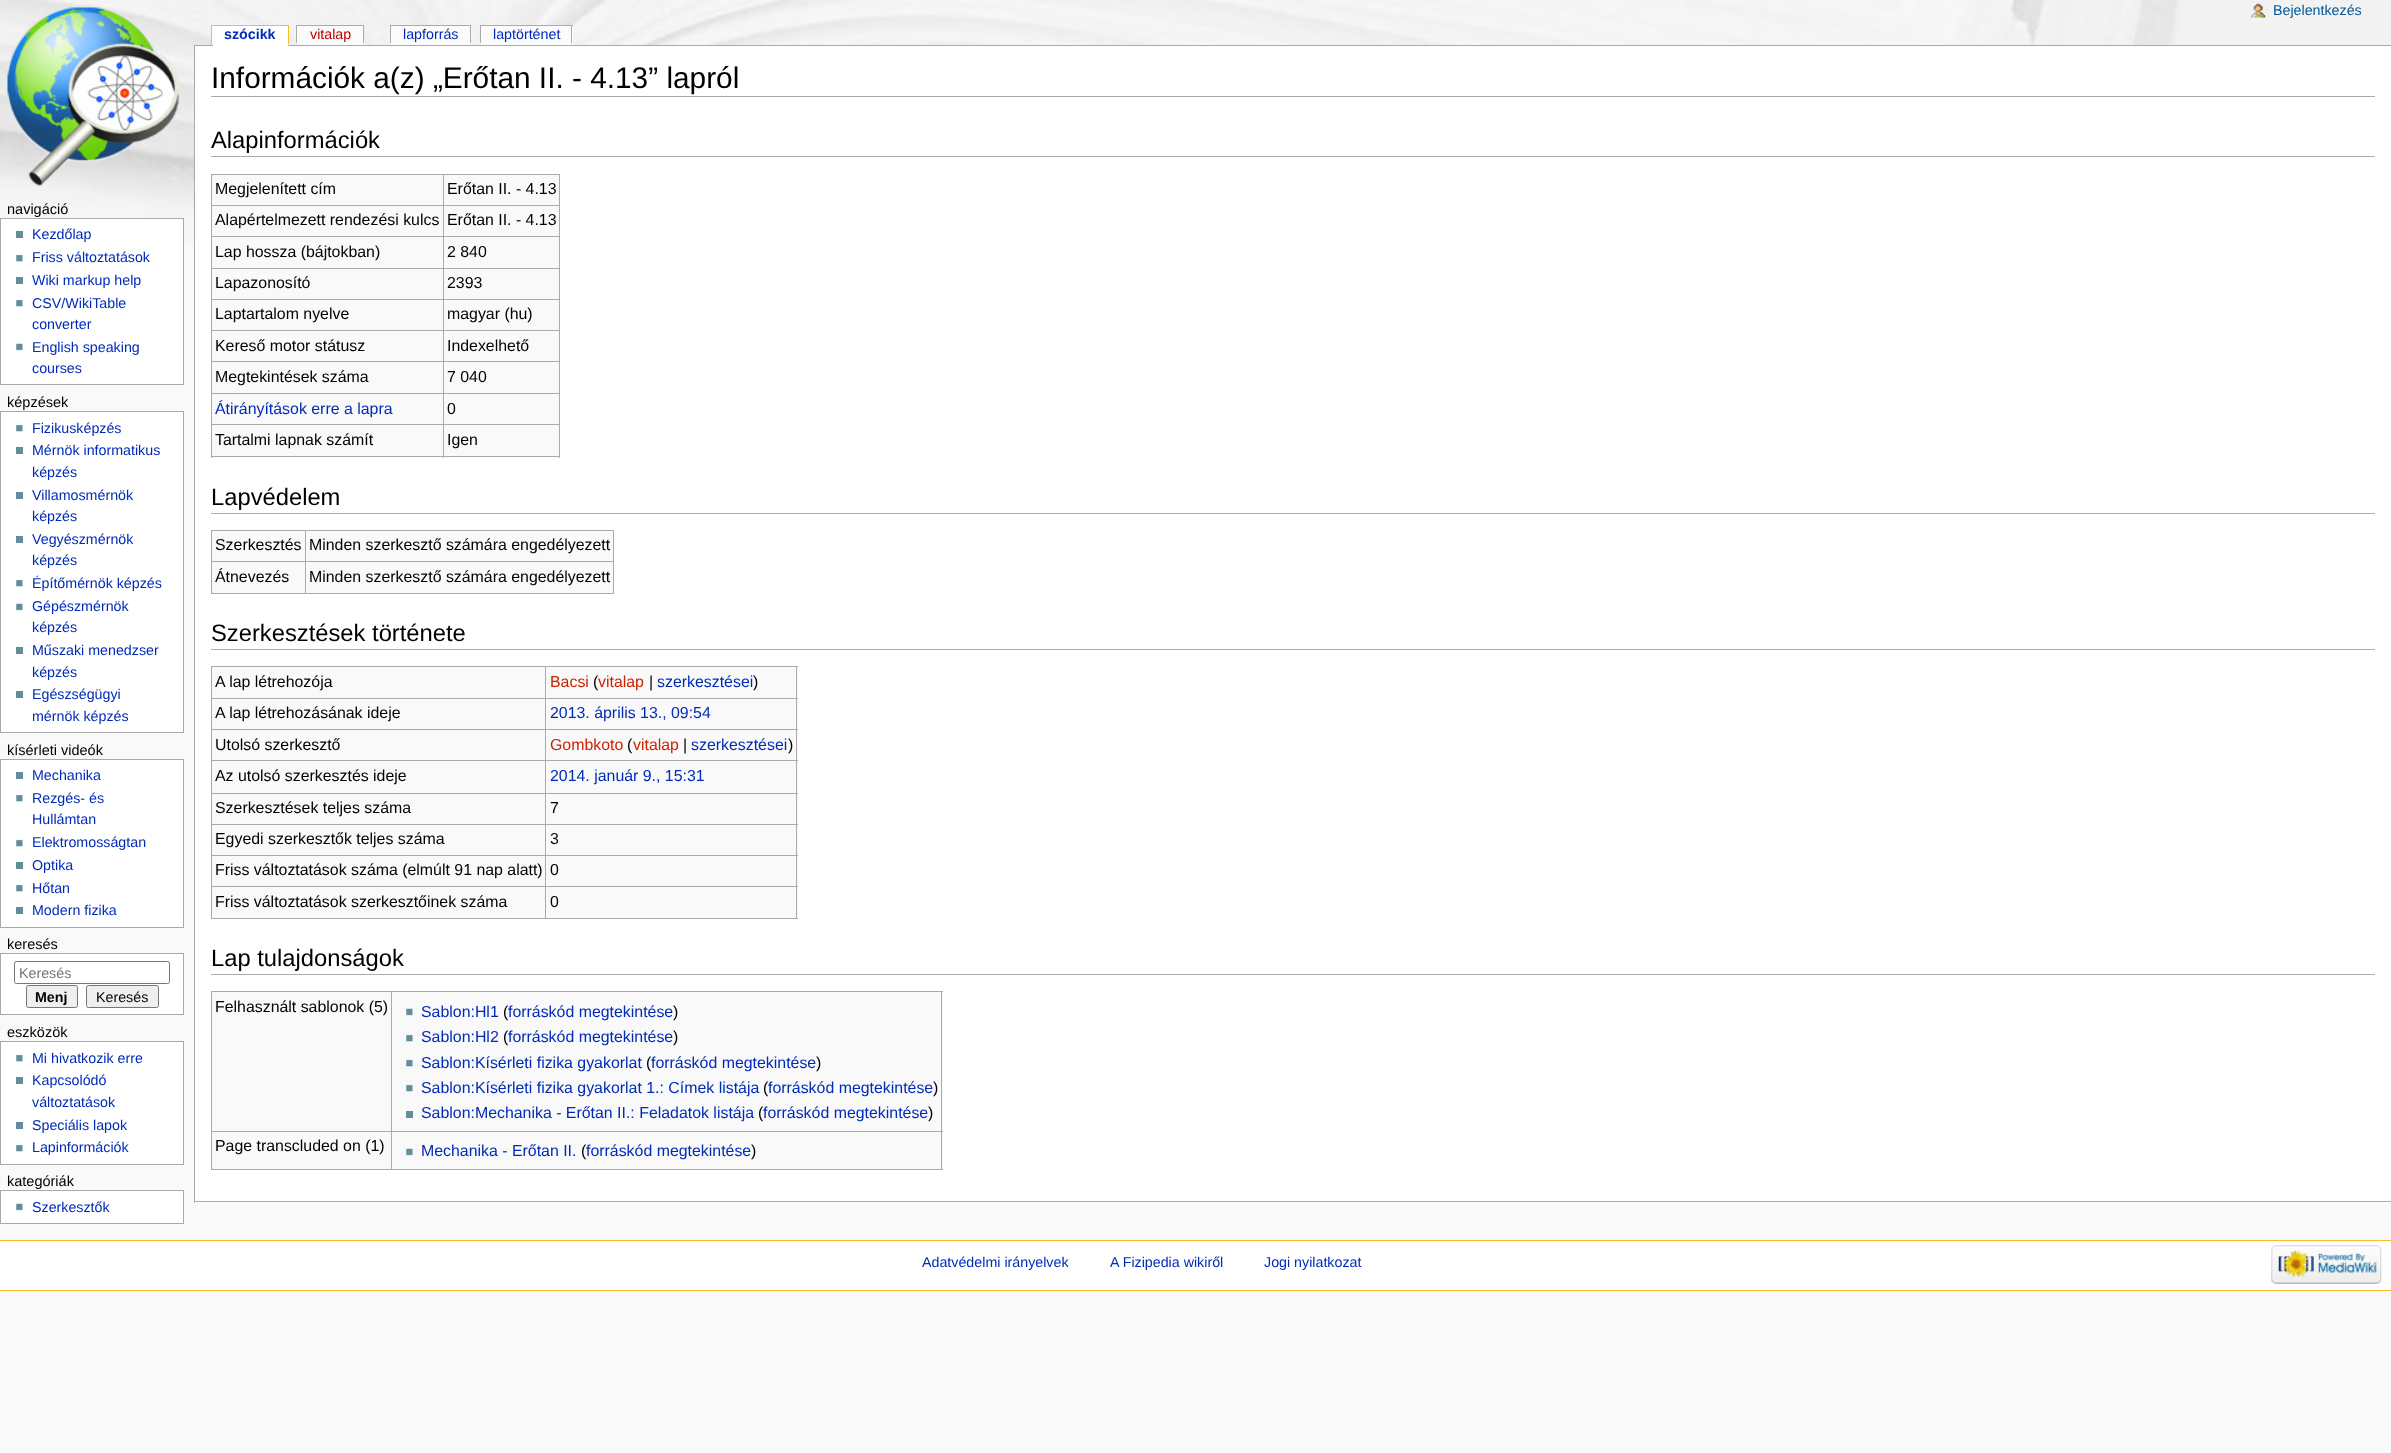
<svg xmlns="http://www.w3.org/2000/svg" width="2391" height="1453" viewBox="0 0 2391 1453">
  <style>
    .t1 { font: bold 14.25px Liberation Sans; fill: #002bb8; }
    .t2 { font: 14.25px Liberation Sans; fill: #ba0000; }
    .t3 { font: 14.25px Liberation Sans; fill: #002bb8; }
    .t4 { font: 14.25px Liberation Sans; fill: #005896; }
    .t5 { font: 14.5px Liberation Sans; fill: #000; }
    .t6 { font: 14.25px Liberation Sans; fill: #757575; }
    .t7 { font: bold 14.25px Liberation Sans; fill: #000; }
    .t8 { font: 14.25px Liberation Sans; fill: #000; }
    .t9 { font: 29.8px Liberation Sans; fill: #000; }
    .t10 { font: 23.75px Liberation Sans; fill: #000; }
    .t11 { font: 15.9px Liberation Sans; fill: #000; }
    .t12 { font: 15.9px Liberation Sans; fill: #002bb8; }
    .t13 { font: 15.9px Liberation Sans; fill: #c20; }
  </style>
  <rect width="100%" height="100%" fill="#f9f9f9"/>
  <image x="0" y="0" width="2391" height="243" href="images/1.png"/>
  <image x="7" y="7" width="173" height="180" href="images/2.png"/>
  <rect x="194" y="45" width="2197" height="1" fill="#aaa"/>
  <rect x="213" y="26" width="75" height="20" fill="#fff"/>
  <text x="224" y="39" class="t1">szócikk</text>
  <rect x="212" y="26" width="1" height="18" fill="#fff"/>
  <rect x="211" y="25" width="78" height="1" fill="#fabd23"/>
  <rect x="288" y="25" width="1" height="19" fill="#fabd23"/>
  <rect x="211" y="25" width="1" height="19" fill="#fabd23"/>
  <rect x="298" y="26" width="65" height="19" fill="#fbfbfb"/>
  <text x="310" y="39" class="t2">vitalap</text>
  <rect x="297" y="26" width="1" height="17" fill="#fff"/>
  <rect x="296" y="25" width="68" height="1" fill="#aaa"/>
  <rect x="363" y="25" width="1" height="18" fill="#aaa"/>
  <rect x="296" y="25" width="1" height="18" fill="#aaa"/>
  <rect x="391" y="26" width="79" height="19" fill="#fbfbfb"/>
  <text x="403" y="39" class="t3">lapforrás</text>
  <rect x="390" y="25" width="81" height="1" fill="#aaa"/>
  <rect x="470" y="25" width="1" height="18" fill="#aaa"/>
  <rect x="390" y="25" width="1" height="18" fill="#aaa"/>
  <rect x="481" y="26" width="90" height="19" fill="#fbfbfb"/>
  <text x="493" y="39" class="t3">laptörténet</text>
  <rect x="572" y="26" width="1" height="17" fill="#fff"/>
  <rect x="480" y="25" width="93" height="1" fill="#aaa"/>
  <rect x="571" y="25" width="1" height="18" fill="#aaa"/>
  <rect x="480" y="25" width="1" height="18" fill="#aaa"/>
  <image x="2251" y="3" width="15" height="15" href="images/3.png"/>
  <text x="2273" y="15" class="t4">Bejelentkezés</text>
  <text x="7" y="214" class="t5">navigáció</text>
  <rect x="0.5" y="218.5" width="183" height="166" fill="#fff" stroke="#aaa"/>
  <rect x="16" y="231" width="7" height="7" fill="#638c9c"/>
  <text x="32" y="239" class="t3">Kezdőlap</text>
  <image x="16" y="254" width="7" height="8" href="images/4.png"/>
  <text x="32" y="262" class="t3">Friss változtatások</text>
  <rect x="16" y="277" width="7" height="7" fill="#638c9c"/>
  <text x="32" y="285" class="t3">Wiki markup help</text>
  <image x="16" y="299" width="7" height="8" href="images/4.png"/>
  <text x="32" y="308" class="t3">CSV/WikiTable</text>
  <text x="32" y="329" class="t3">converter</text>
  <image x="16" y="343" width="7" height="8" href="images/5.png"/>
  <text x="32" y="352" class="t3">English speaking</text>
  <text x="32" y="373" class="t3">courses</text>
  <text x="7" y="407" class="t5">képzések</text>
  <rect x="0.5" y="411.5" width="183" height="321" fill="#fff" stroke="#aaa"/>
  <image x="16" y="424" width="7" height="8" href="images/4.png"/>
  <text x="32" y="433" class="t3">Fizikusképzés</text>
  <rect x="16" y="447" width="7" height="7" fill="#638c9c"/>
  <text x="32" y="455" class="t3">Mérnök informatikus</text>
  <text x="32" y="477" class="t3">képzés</text>
  <rect x="16" y="492" width="7" height="7" fill="#638c9c"/>
  <text x="32" y="500" class="t3">Villamosmérnök</text>
  <text x="32" y="521" class="t3">képzés</text>
  <rect x="16" y="536" width="7" height="7" fill="#638c9c"/>
  <text x="32" y="544" class="t3">Vegyészmérnök</text>
  <text x="32" y="565" class="t3">képzés</text>
  <image x="16" y="579" width="7" height="8" href="images/4.png"/>
  <text x="32" y="588" class="t3">Építőmérnök képzés</text>
  <image x="16" y="603" width="7" height="8" href="images/5.png"/>
  <text x="32" y="611" class="t3">Gépészmérnök</text>
  <text x="32" y="632" class="t3">képzés</text>
  <rect x="16" y="647" width="7" height="7" fill="#638c9c"/>
  <text x="32" y="655" class="t3">Műszaki menedzser</text>
  <text x="32" y="677" class="t3">képzés</text>
  <rect x="16" y="691" width="7" height="7" fill="#638c9c"/>
  <text x="32" y="699" class="t3">Egészségügyi</text>
  <text x="32" y="721" class="t3">mérnök képzés</text>
  <text x="7" y="755" class="t5">kísérleti videók</text>
  <rect x="0.5" y="759.5" width="183" height="168" fill="#fff" stroke="#aaa"/>
  <rect x="16" y="772" width="7" height="7" fill="#638c9c"/>
  <text x="32" y="780" class="t3">Mechanika</text>
  <image x="16" y="794" width="7" height="8" href="images/4.png"/>
  <text x="32" y="803" class="t3">Rezgés- és</text>
  <text x="32" y="824" class="t3">Hullámtan</text>
  <image x="16" y="839" width="7" height="8" href="images/4.png"/>
  <text x="32" y="847" class="t3">Elektromosságtan</text>
  <rect x="16" y="862" width="7" height="7" fill="#638c9c"/>
  <text x="32" y="870" class="t3">Optika</text>
  <image x="16" y="884" width="7" height="8" href="images/4.png"/>
  <text x="32" y="893" class="t3">Hőtan</text>
  <rect x="16" y="907" width="7" height="7" fill="#638c9c"/>
  <text x="32" y="915" class="t3">Modern fizika</text>
  <text x="7" y="949" class="t5">keresés</text>
  <rect x="0.5" y="953.5" width="183" height="61" fill="#fff" stroke="#aaa"/>
  <rect x="14.5" y="961.5" width="155" height="22" rx="2" fill="none" stroke="#767676"/>
  <text x="19" y="978" class="t6">Keresés</text>
  <rect x="26.5" y="985.5" width="51" height="22" rx="2" fill="#efefef" stroke="#767676"/>
  <text x="35" y="1002" class="t7">Menj</text>
  <rect x="86.5" y="985.5" width="72" height="22" rx="2" fill="#efefef" stroke="#767676"/>
  <text x="96" y="1002" class="t8">Keresés</text>
  <text x="7" y="1037" class="t5">eszközök</text>
  <rect x="0.5" y="1041.5" width="183" height="123" fill="#fff" stroke="#aaa"/>
  <image x="16" y="1054" width="7" height="8" href="images/4.png"/>
  <text x="32" y="1063" class="t3">Mi hivatkozik erre</text>
  <rect x="16" y="1077" width="7" height="7" fill="#638c9c"/>
  <text x="32" y="1085" class="t3">Kapcsolódó</text>
  <text x="32" y="1107" class="t3">változtatások</text>
  <rect x="16" y="1122" width="7" height="7" fill="#638c9c"/>
  <text x="32" y="1130" class="t3">Speciális lapok</text>
  <image x="16" y="1144" width="7" height="8" href="images/4.png"/>
  <text x="32" y="1152" class="t3">Lapinformációk</text>
  <text x="7" y="1186" class="t5">kategóriák</text>
  <rect x="0.5" y="1190.5" width="183" height="33" fill="#fff" stroke="#aaa"/>
  <image x="16" y="1203" width="7" height="8" href="images/5.png"/>
  <text x="32" y="1212" class="t3">Szerkesztők</text>
  <rect x="195" y="46" width="2196" height="1157" fill="#fff"/>
  <rect x="194" y="1201" width="2197" height="1" fill="#aaa"/>
  <rect x="194" y="45" width="1" height="1158" fill="#aaa"/>
  <rect x="211" y="96" width="2164" height="1" fill="#aaa"/>
  <text x="211" y="88" class="t9">Információk a(z) „Erőtan II. - 4.13” lapról</text>
  <rect x="211" y="156" width="2164" height="1" fill="#aaa"/>
  <text x="211" y="148" class="t10">Alapinformációk</text>
  <rect x="212" y="175" width="347" height="283" fill="#f9f9f9"/>
  <rect x="211" y="174" width="349" height="1" fill="#aaa"/>
  <rect x="559" y="174" width="1" height="284" fill="#aaa"/>
  <rect x="211" y="456" width="349" height="1" fill="#aaa"/>
  <rect x="211" y="174" width="1" height="284" fill="#aaa"/>
  <text x="215" y="194" class="t11">Megjelenített cím</text>
  <rect x="443" y="205" width="117" height="1" fill="#aaa"/>
  <rect x="443" y="236" width="117" height="1" fill="#aaa"/>
  <rect x="443" y="268" width="117" height="1" fill="#aaa"/>
  <rect x="443" y="299" width="117" height="1" fill="#aaa"/>
  <rect x="443" y="330" width="117" height="1" fill="#aaa"/>
  <rect x="443" y="361" width="117" height="1" fill="#aaa"/>
  <rect x="443" y="393" width="117" height="1" fill="#aaa"/>
  <rect x="443" y="424" width="117" height="1" fill="#aaa"/>
  <rect x="443" y="424" width="1" height="34" fill="#aaa"/>
  <rect x="211" y="424" width="233" height="1" fill="#aaa"/>
  <rect x="443" y="393" width="1" height="32" fill="#aaa"/>
  <rect x="211" y="393" width="233" height="1" fill="#aaa"/>
  <rect x="443" y="361" width="1" height="33" fill="#aaa"/>
  <rect x="211" y="361" width="233" height="1" fill="#aaa"/>
  <rect x="443" y="330" width="1" height="33" fill="#aaa"/>
  <rect x="211" y="330" width="233" height="1" fill="#aaa"/>
  <rect x="443" y="299" width="1" height="32" fill="#aaa"/>
  <rect x="211" y="299" width="233" height="1" fill="#aaa"/>
  <rect x="443" y="268" width="1" height="32" fill="#aaa"/>
  <rect x="211" y="268" width="233" height="1" fill="#aaa"/>
  <rect x="443" y="236" width="1" height="33" fill="#aaa"/>
  <rect x="211" y="236" width="233" height="1" fill="#aaa"/>
  <rect x="443" y="205" width="1" height="33" fill="#aaa"/>
  <rect x="211" y="205" width="233" height="1" fill="#aaa"/>
  <rect x="443" y="174" width="1" height="32" fill="#aaa"/>
  <text x="447" y="194" class="t11">Erőtan II. - 4.13</text>
  <text x="215" y="225" class="t11">Alapértelmezett rendezési kulcs</text>
  <text x="447" y="225" class="t11">Erőtan II. - 4.13</text>
  <text x="215" y="257" class="t11">Lap hossza (bájtokban)</text>
  <text x="447" y="257" class="t11">2 840</text>
  <text x="215" y="288" class="t11">Lapazonosító</text>
  <text x="447" y="288" class="t11">2393</text>
  <text x="215" y="319" class="t11">Laptartalom nyelve</text>
  <text x="447" y="319" class="t11">magyar (hu)</text>
  <text x="215" y="351" class="t11">Kereső motor státusz</text>
  <text x="447" y="351" class="t11">Indexelhető</text>
  <text x="215" y="382" class="t11">Megtekintések száma</text>
  <text x="447" y="382" class="t11">7 040</text>
  <text x="215" y="414" class="t12">Átirányítások erre a lapra</text>
  <text x="447" y="414" class="t11">0</text>
  <text x="215" y="445" class="t11">Tartalmi lapnak számít</text>
  <text x="447" y="445" class="t11">Igen</text>
  <rect x="211" y="513" width="2164" height="1" fill="#aaa"/>
  <text x="211" y="505" class="t10">Lapvédelem</text>
  <rect x="212" y="531" width="401" height="62" fill="#f9f9f9"/>
  <rect x="211" y="530" width="403" height="1" fill="#aaa"/>
  <rect x="613" y="530" width="1" height="64" fill="#aaa"/>
  <rect x="211" y="593" width="403" height="1" fill="#aaa"/>
  <rect x="211" y="530" width="1" height="64" fill="#aaa"/>
  <text x="215" y="550" class="t11">Szerkesztés</text>
  <rect x="305" y="561" width="309" height="1" fill="#aaa"/>
  <rect x="305" y="561" width="1" height="33" fill="#aaa"/>
  <rect x="211" y="561" width="95" height="1" fill="#aaa"/>
  <rect x="305" y="530" width="1" height="33" fill="#aaa"/>
  <text x="309" y="550" class="t11">Minden szerkesztő számára engedélyezett</text>
  <text x="215" y="582" class="t11">Átnevezés</text>
  <text x="309" y="582" class="t11">Minden szerkesztő számára engedélyezett</text>
  <rect x="211" y="649" width="2164" height="1" fill="#aaa"/>
  <text x="211" y="641" class="t10">Szerkesztések története</text>
  <rect x="212" y="667" width="586" height="251" fill="#f9f9f9"/>
  <rect x="211" y="666" width="587" height="1" fill="#aaa"/>
  <rect x="796" y="666" width="1" height="253" fill="#aaa"/>
  <rect x="211" y="918" width="587" height="1" fill="#aaa"/>
  <rect x="211" y="666" width="1" height="253" fill="#aaa"/>
  <text x="215" y="687" class="t11">A lap létrehozója</text>
  <rect x="545" y="698" width="253" height="1" fill="#aaa"/>
  <rect x="545" y="729" width="253" height="1" fill="#aaa"/>
  <rect x="545" y="760" width="253" height="1" fill="#aaa"/>
  <rect x="545" y="793" width="253" height="1" fill="#aaa"/>
  <rect x="545" y="824" width="253" height="1" fill="#aaa"/>
  <rect x="545" y="855" width="253" height="1" fill="#aaa"/>
  <rect x="545" y="886" width="253" height="1" fill="#aaa"/>
  <rect x="545" y="886" width="1" height="33" fill="#aaa"/>
  <rect x="211" y="886" width="335" height="1" fill="#aaa"/>
  <rect x="545" y="855" width="1" height="33" fill="#aaa"/>
  <rect x="211" y="855" width="335" height="1" fill="#aaa"/>
  <rect x="545" y="824" width="1" height="32" fill="#aaa"/>
  <rect x="211" y="824" width="335" height="1" fill="#aaa"/>
  <rect x="545" y="793" width="1" height="32" fill="#aaa"/>
  <rect x="211" y="793" width="335" height="1" fill="#aaa"/>
  <rect x="545" y="760" width="1" height="34" fill="#aaa"/>
  <rect x="211" y="760" width="335" height="1" fill="#aaa"/>
  <rect x="545" y="729" width="1" height="32" fill="#aaa"/>
  <rect x="211" y="729" width="335" height="1" fill="#aaa"/>
  <rect x="545" y="698" width="1" height="32" fill="#aaa"/>
  <rect x="211" y="698" width="335" height="1" fill="#aaa"/>
  <rect x="545" y="666" width="1" height="33" fill="#aaa"/>
  <text x="550" y="687" class="t13">Bacsi</text>
  <text x="593" y="687" class="t11">(</text>
  <text x="598" y="687" class="t13">vitalap</text>
  <text x="649" y="687" class="t11">|</text>
  <text x="657" y="687" class="t12">szerkesztései</text>
  <text x="753" y="687" class="t11">)</text>
  <text x="215" y="718" class="t11">A lap létrehozásának ideje</text>
  <text x="550" y="718" class="t12">2013. április 13., 09:54</text>
  <text x="215" y="750" class="t11">Utolsó szerkesztő</text>
  <text x="550" y="750" class="t13">Gombkoto</text>
  <text x="627" y="750" class="t11">(</text>
  <text x="633" y="750" class="t13">vitalap</text>
  <text x="683" y="750" class="t11">|</text>
  <text x="691" y="750" class="t12">szerkesztései</text>
  <text x="788" y="750" class="t11">)</text>
  <text x="215" y="781" class="t11">Az utolsó szerkesztés ideje</text>
  <text x="550" y="781" class="t12">2014. január 9., 15:31</text>
  <text x="215" y="813" class="t11">Szerkesztések teljes száma</text>
  <text x="550" y="813" class="t11">7</text>
  <text x="215" y="844" class="t11">Egyedi szerkesztők teljes száma</text>
  <text x="550" y="844" class="t11">3</text>
  <text x="215" y="875" class="t11">Friss változtatások száma (elmúlt 91 nap alatt)</text>
  <text x="550" y="875" class="t11">0</text>
  <text x="215" y="907" class="t11">Friss változtatások szerkesztőinek száma</text>
  <text x="550" y="907" class="t11">0</text>
  <rect x="211" y="974" width="2164" height="1" fill="#aaa"/>
  <text x="211" y="966" class="t10">Lap tulajdonságok</text>
  <rect x="212" y="992" width="731" height="177" fill="#f9f9f9"/>
  <rect x="211" y="991" width="732" height="1" fill="#aaa"/>
  <rect x="941" y="991" width="1" height="179" fill="#aaa"/>
  <rect x="211" y="1169" width="732" height="1" fill="#aaa"/>
  <rect x="211" y="991" width="1" height="179" fill="#aaa"/>
  <text x="215" y="1012" class="t11">Felhasznált sablonok (5)</text>
  <rect x="391" y="1131" width="552" height="1" fill="#aaa"/>
  <rect x="391" y="1131" width="1" height="39" fill="#aaa"/>
  <rect x="211" y="1131" width="182" height="1" fill="#aaa"/>
  <rect x="391" y="991" width="1" height="142" fill="#aaa"/>
  <image x="406" y="1008" width="7" height="8" href="images/6.png"/>
  <text x="421" y="1017" class="t12">Sablon:Hl1</text>
  <text x="503" y="1017" class="t11">(</text>
  <text x="508" y="1017" class="t12">forráskód megtekintése</text>
  <text x="673" y="1017" class="t11">)</text>
  <image x="406" y="1034" width="7" height="8" href="images/7.png"/>
  <text x="421" y="1042" class="t12">Sablon:Hl2</text>
  <text x="503" y="1042" class="t11">(</text>
  <text x="508" y="1042" class="t12">forráskód megtekintése</text>
  <text x="673" y="1042" class="t11">)</text>
  <image x="406" y="1059" width="7" height="8" href="images/7.png"/>
  <text x="421" y="1068" class="t12">Sablon:Kísérleti fizika gyakorlat</text>
  <text x="646" y="1068" class="t11">(</text>
  <text x="651" y="1068" class="t12">forráskód megtekintése</text>
  <text x="816" y="1068" class="t11">)</text>
  <image x="406" y="1084" width="7" height="8" href="images/7.png"/>
  <text x="421" y="1093" class="t12">Sablon:Kísérleti fizika gyakorlat 1.: Címek listája</text>
  <text x="763" y="1093" class="t11">(</text>
  <text x="768" y="1093" class="t12">forráskód megtekintése</text>
  <text x="933" y="1093" class="t11">)</text>
  <rect x="406" y="1111" width="7" height="7" fill="#638c9c"/>
  <text x="421" y="1118" class="t12">Sablon:Mechanika - Erőtan II.: Feladatok listája</text>
  <text x="758" y="1118" class="t11">(</text>
  <text x="763" y="1118" class="t12">forráskód megtekintése</text>
  <text x="928" y="1118" class="t11">)</text>
  <text x="215" y="1151" class="t11">Page transcluded on (1)</text>
  <image x="406" y="1148" width="7" height="8" href="images/6.png"/>
  <text x="421" y="1156" class="t12">Mechanika - Erőtan II.</text>
  <text x="581" y="1156" class="t11">(</text>
  <text x="586" y="1156" class="t12">forráskód megtekintése</text>
  <text x="751" y="1156" class="t11">)</text>
  <rect x="0" y="1241" width="2391" height="49" fill="#fff"/>
  <rect x="0" y="1240" width="2391" height="1" fill="#fabd23"/>
  <rect x="0" y="1290" width="2391" height="1" fill="#fabd23"/>
  <text x="922" y="1267" class="t3">Adatvédelmi irányelvek</text>
  <text x="1110" y="1267" class="t3">A Fizipedia wikiről</text>
  <text x="1264" y="1267" class="t3">Jogi nyilatkozat</text>
  <image x="2271" y="1245" width="111" height="39" href="images/8.png"/>
</svg>
